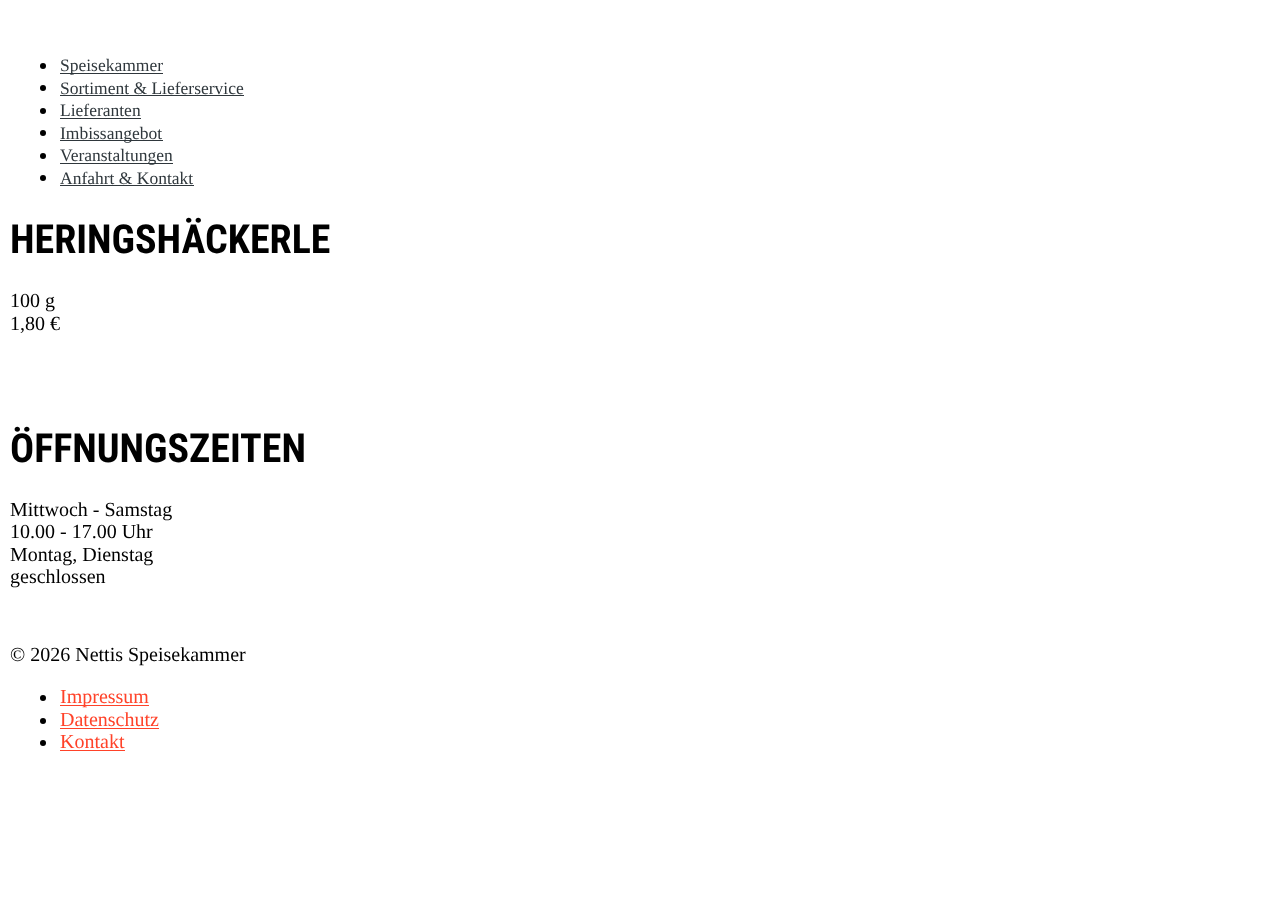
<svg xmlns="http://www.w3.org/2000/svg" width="1279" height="902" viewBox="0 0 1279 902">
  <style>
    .t1 { font: 17.5px Liberation Serif; fill: #2f373c; }
    .t2 { font: bold 40px Roboto Condensed; fill: #000; }
    .t3 { font: 20px Liberation Serif; fill: #000; }
    .t4 { font: 20px Liberation Serif; fill: #ff4229; }
  </style>
  <rect width="100%" height="100%" fill="#fff"/>
  <circle cx="43" cy="66" r="3" fill="#000"/>
  <rect x="60" y="73" width="103" height="1" fill="#2f373c"/>
  <text x="60" y="71" class="t1">Speisekammer</text>
  <circle cx="43" cy="88" r="3" fill="#000"/>
  <text x="60" y="94" class="t1">Sortiment &amp; Lieferservice</text>
  <rect x="60" y="95" width="184" height="1" fill="#2f373c"/>
  <circle cx="43" cy="111" r="3" fill="#000"/>
  <text x="60" y="116" class="t1">Lieferanten</text>
  <rect x="60" y="118" width="81" height="1" fill="#2f373c"/>
  <circle cx="43" cy="133" r="3" fill="#000"/>
  <rect x="60" y="140" width="103" height="1" fill="#2f373c"/>
  <text x="60" y="139" class="t1">Imbissangebot</text>
  <circle cx="43" cy="156" r="3" fill="#000"/>
  <rect x="60" y="163" width="113" height="1" fill="#2f373c"/>
  <text x="60" y="161" class="t1">Veranstaltungen</text>
  <circle cx="43" cy="178" r="3" fill="#000"/>
  <text x="60" y="184" class="t1">Anfahrt &amp; Kontakt</text>
  <rect x="60" y="185" width="134" height="1" fill="#2f373c"/>
  <text x="10" y="253" class="t2">HERINGSHÄCKERLE</text>
  <text x="10" y="307" class="t3">100 g</text>
  <text x="10" y="330" class="t3">1,80 €</text>
  <text x="10" y="462" class="t2">ÖFFNUNGSZEITEN</text>
  <text x="10" y="516" class="t3">Mittwoch - Samstag</text>
  <text x="10" y="538" class="t3">10.00 - 17.00 Uhr</text>
  <text x="10" y="561" class="t3">Montag, Dienstag</text>
  <text x="10" y="583" class="t3">geschlossen</text>
  <text x="10" y="661" class="t3">© 2026 Nettis Speisekammer</text>
  <circle cx="43" cy="698" r="3" fill="#000"/>
  <rect x="60" y="705" width="89" height="1" fill="#ff4229"/>
  <text x="60" y="703" class="t4">Impressum</text>
  <circle cx="43" cy="721" r="3" fill="#000"/>
  <text x="60" y="726" class="t4">Datenschutz</text>
  <rect x="60" y="728" width="99" height="1" fill="#ff4229"/>
  <circle cx="43" cy="743" r="3" fill="#000"/>
  <text x="60" y="748" class="t4">Kontakt</text>
  <rect x="60" y="750" width="65" height="1" fill="#ff4229"/>
</svg>
